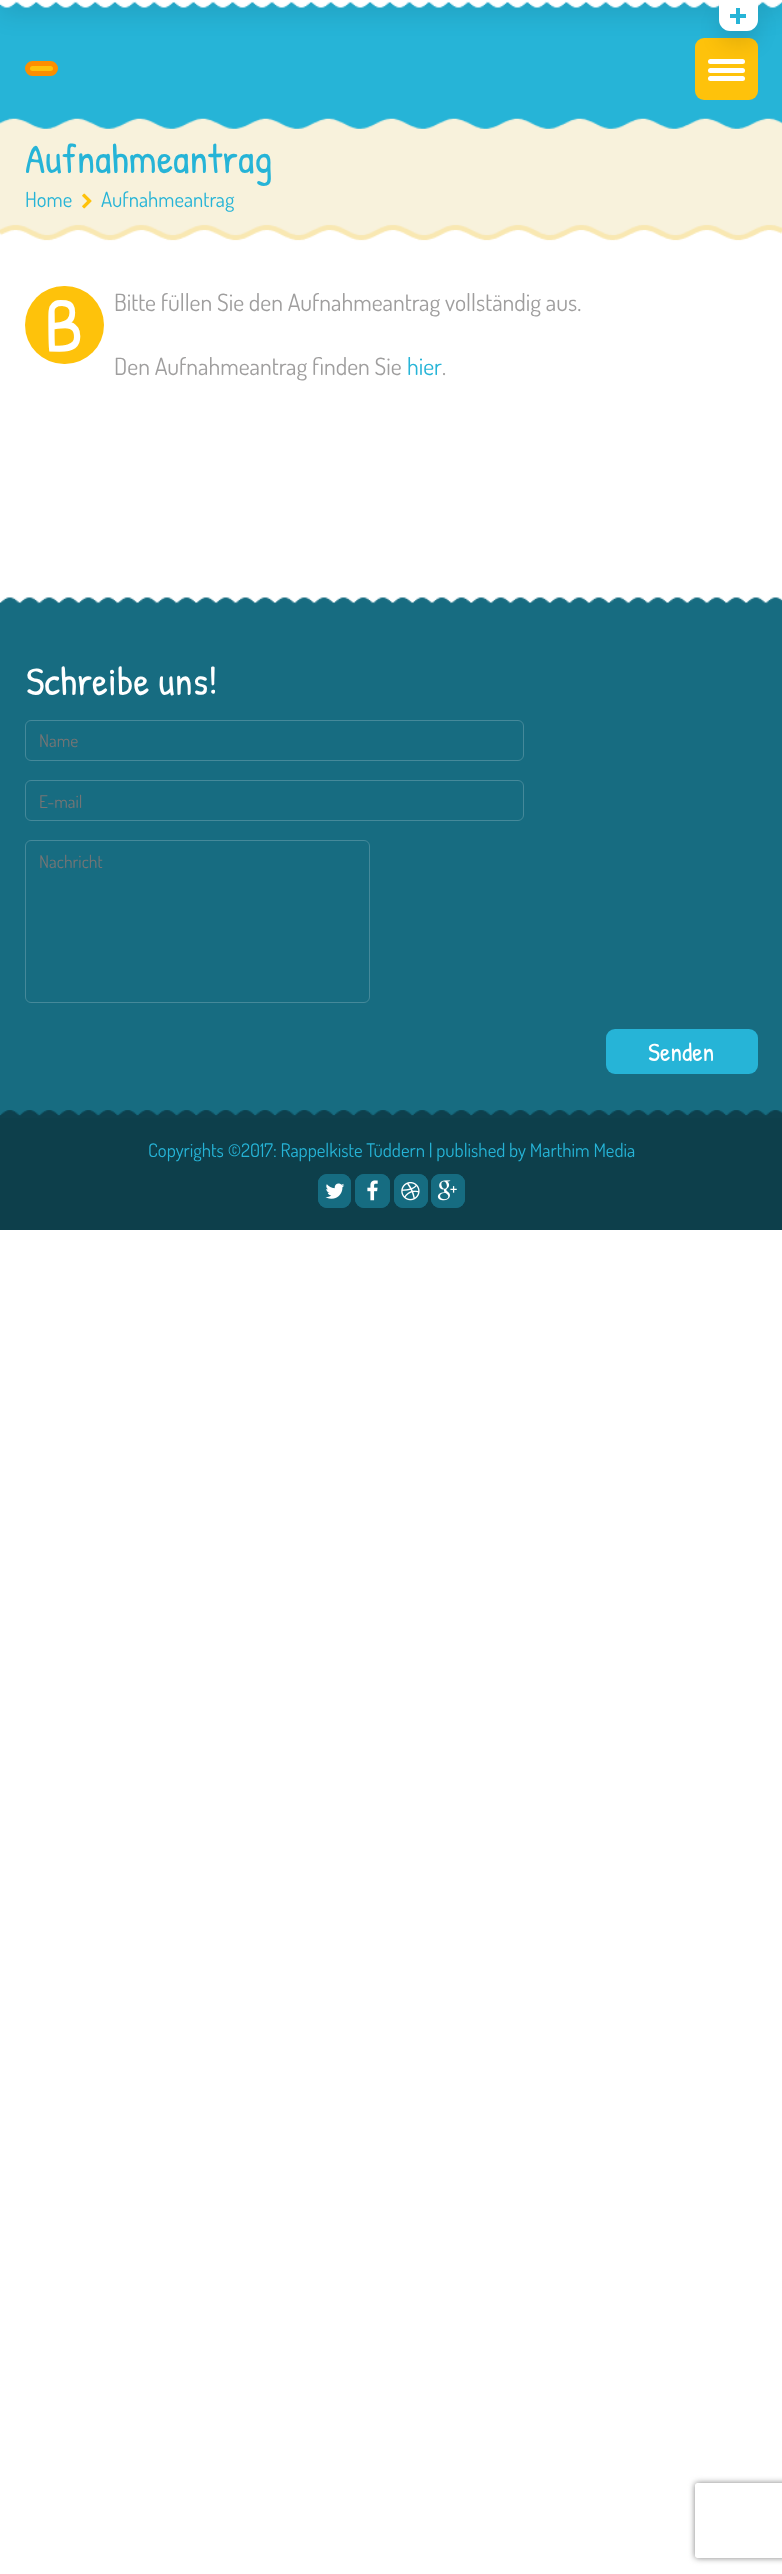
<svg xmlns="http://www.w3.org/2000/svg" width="782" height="2574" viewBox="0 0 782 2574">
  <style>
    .t1 { font: 41.25px Patrick Hand; fill: #26b4d7; }
    .t2 { font: 20.75px Dosis; fill: #26b4d7; }
    .t3 { font: 78px Patrick Hand; fill: #fff; }
    .t4 { font: 23.75px Dosis; fill: #9f9e9e; }
    .t5 { font: 23.75px Dosis; fill: #26b4d7; }
    .t6 { font: 40px Patrick Hand; fill: #fff; }
    .t7 { font: 17.5px Dosis; fill: #757575; }
    .t8 { font: 26px Patrick Hand; fill: #fff; }
    .t9 { font: 18.75px Dosis; fill: #26b4d7; }
  </style>
  <defs>
    <clipPath id="clip1"><path d="M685 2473H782V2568H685ZM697.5 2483H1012.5C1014 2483 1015 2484 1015 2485.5V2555.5C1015 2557 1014 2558 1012.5 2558H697.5C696 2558 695 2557 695 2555.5V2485.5C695 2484 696 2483 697.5 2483Z" clip-rule="evenodd"/></clipPath>
  </defs>
  <rect width="100%" height="100%" fill="#fff"/>
  <rect x="0" y="1" width="782" height="128" fill="#26b4d7"/>
  <rect x="695" y="38" width="63" height="62" rx="9" fill="#fec20b"/>
  <rect x="0" y="-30" width="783" height="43" fill="#0000001a" filter="blur(12.5px)"/>
  <image x="0" y="0" width="782" height="8" href="images/1.png"/>
  <rect x="708" y="59" width="37" height="5" rx="2.5" fill="#fff"/>
  <rect x="708" y="68" width="37" height="5" rx="2.5" fill="#fff"/>
  <rect x="719" y="13" width="39" height="31" rx="11" fill="#0000001a" filter="blur(9.5px)"/>
  <path d="M719 0H758V20C758 26 753 31 747 31H730C724 31 719 26 719 20Z" fill="#fff"/>
  <rect x="730" y="14" width="16" height="4" fill="#26b4d7"/>
  <rect x="736" y="8" width="4" height="16" fill="#26b4d7"/>
  <rect x="27.5" y="63.5" width="28" height="10" rx="5" fill="#fec20b" stroke="#fd8e00" stroke-width="5"/>
  <rect x="708" y="76" width="37" height="5" rx="2.5" fill="#fff"/>
  <image x="0" y="118" width="782" height="123" href="images/2.png"/>
  <text x="25" y="173" class="t1">Aufnahmeantrag</text>
  <text x="25" y="207" class="t2">Home</text>
  <image x="82" y="193" width="10" height="16" href="images/3.png"/>
  <text x="101" y="207" class="t2">Aufnahmeantrag</text>
  <rect x="25" y="286" width="79" height="78" rx="39" fill="#fec20b"/>
  <text x="44" y="352" class="t3">B</text>
  <text x="114" y="311" class="t4">Bitte füllen Sie den Aufnahmeantrag vollständig aus.</text>
  <text x="114" y="375" class="t4">Den Aufnahmeantrag finden Sie</text>
  <text x="407" y="375" class="t5">hier</text>
  <text x="442" y="375" class="t4">.</text>
  <image x="0" y="597" width="782" height="8" href="images/4.png"/>
  <rect x="0" y="605" width="782" height="512" fill="#176c81"/>
  <text x="26" y="695" class="t6">Schreibe uns!</text>
  <rect x="25.5" y="720.5" width="498" height="40" rx="5.5" fill="none" stroke="#45899a"/>
  <text x="39" y="747" class="t7">Name</text>
  <rect x="25.5" y="780.5" width="498" height="40" rx="5.5" fill="none" stroke="#45899a"/>
  <text x="39" y="808" class="t7">E-mail</text>
  <rect x="25.5" y="840.5" width="344" height="162" rx="5.5" fill="none" stroke="#45899a"/>
  <text x="39" y="868" class="t7">Nachricht</text>
  <rect x="606" y="1029" width="152" height="45" rx="9" fill="#26b4d7"/>
  <text x="648" y="1061" class="t8">Senden</text>
  <image x="0" y="1110" width="782" height="8" href="images/5.png"/>
  <rect x="0" y="1118" width="782" height="112" fill="#0d3f4b"/>
  <text x="148" y="1157" class="t9">Copyrights ©2017: Rappelkiste Tüddern | published by Marthim Media</text>
  <rect x="318" y="1174" width="33" height="34" rx="9" fill="#26b4d7"/>
  <rect x="318" y="1174" width="33" height="34" rx="9" fill="#00000066"/>
  <image x="325" y="1183" width="20" height="16" href="images/6.png"/>
  <rect x="355" y="1174" width="35" height="34" rx="9" fill="#26b4d7"/>
  <rect x="355" y="1174" width="35" height="34" rx="9" fill="#00000066"/>
  <image x="367" y="1180" width="11" height="21" href="images/7.png"/>
  <rect x="394" y="1174" width="34" height="34" rx="9" fill="#26b4d7"/>
  <rect x="394" y="1174" width="34" height="34" rx="9" fill="#00000066"/>
  <image x="401" y="1182" width="19" height="19" href="images/8.png"/>
  <rect x="431" y="1174" width="34" height="34" rx="9" fill="#26b4d7"/>
  <rect x="431" y="1174" width="34" height="34" rx="9" fill="#00000066"/>
  <image x="437" y="1180" width="20" height="21" href="images/9.png"/>
  <g clip-path="url(#clip1)">
    <rect x="695" y="2483" width="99" height="75" rx="2.5" fill="#808080" filter="blur(3px)"/>
  </g>
</svg>
